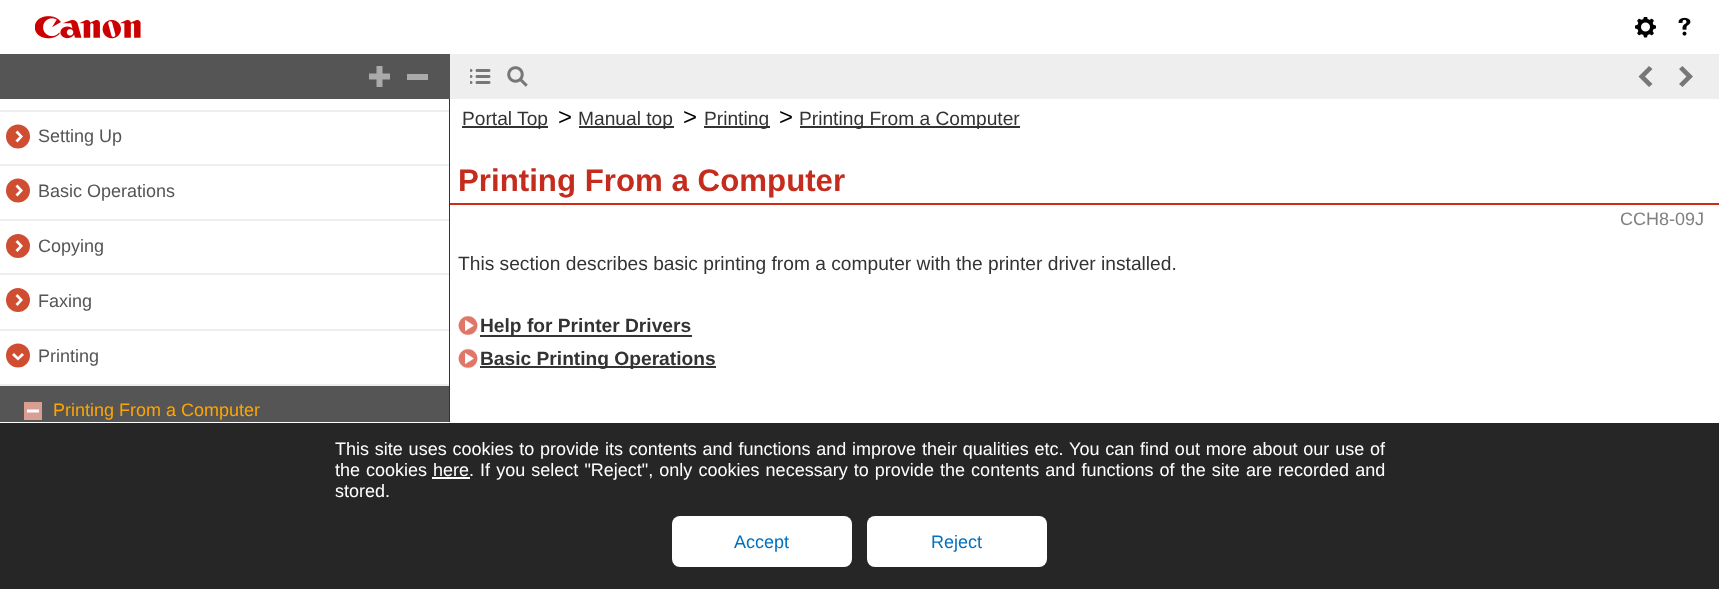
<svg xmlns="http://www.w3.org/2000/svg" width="1719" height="589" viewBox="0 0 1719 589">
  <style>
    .t1 { font: 18px Liberation Sans; fill: #555; }
    .t2 { font: 18px Liberation Sans; fill: #ffa500; }
    .t3 { font: 19.2px Liberation Sans; fill: #333; }
    .t4 { font: 24px Liberation Sans; fill: #000; }
    .t5 { font: bold 31.25px Liberation Sans; fill: #c42c1e; }
    .t6 { font: 18px Liberation Sans; fill: #808080; }
    .t7 { font: bold 19.2px Liberation Sans; fill: #333; }
    .t8 { font: 18px Liberation Sans; fill: #fff; }
    .t9 { font: 18px Liberation Sans; fill: #0070c0; }
  </style>
  <rect width="100%" height="100%" fill="#fff"/>
  <image x="35" y="16" width="106" height="23" href="images/1.png"/>
  <image x="1635" y="17" width="21" height="21" href="images/2.png"/>
  <image x="1678" y="17" width="13" height="19" href="images/3.png"/>
  <rect x="0" y="54" width="450" height="45" fill="#555"/>
  <image x="369" y="66" width="21" height="21" href="images/4.png"/>
  <rect x="407" y="74" width="21" height="6" fill="#aaa"/>
  <rect x="450" y="54" width="1269" height="45" fill="#eee"/>
  <image x="470" y="69" width="21" height="15" href="images/5.png"/>
  <image x="507" y="66" width="21" height="21" href="images/6.png"/>
  <path d="M1652.5 84L1645 76.5L1652.5 69L1649 66L1638.5 76.5L1649 87ZM1679 69L1686.5 76.5L1679 84L1682.5 87L1693 76.5L1682.5 66Z" fill="#777"/>
  <rect x="449" y="99" width="1" height="323" fill="#333"/>
  <rect x="0" y="110" width="449" height="2" fill="#eee"/>
  <rect x="0" y="164" width="449" height="2" fill="#eee"/>
  <circle cx="18" cy="136.5" r="12" fill="#cf4e32"/>
  <path d="M15.5 132.5L19.5 136.5L15.5 140.5L17.5 142.5L23 136.5L17.5 130.5Z" fill="#fff"/>
  <text x="38" y="142" class="t1">Setting Up</text>
  <rect x="0" y="219" width="449" height="2" fill="#eee"/>
  <circle cx="18" cy="190.5" r="12" fill="#cf4e32"/>
  <path d="M15.5 186.5L19.5 190.5L15.5 194.5L17.5 196.5L23 190.5L17.5 184.5Z" fill="#fff"/>
  <text x="38" y="197" class="t1">Basic Operations</text>
  <rect x="0" y="273" width="449" height="2" fill="#eee"/>
  <circle cx="18" cy="246" r="12" fill="#cf4e32"/>
  <path d="M15.5 242L19.5 246L15.5 250L17.5 252L23 246L17.5 240Z" fill="#fff"/>
  <text x="38" y="252" class="t1">Copying</text>
  <rect x="0" y="329" width="449" height="2" fill="#eee"/>
  <circle cx="18" cy="300" r="12" fill="#cf4e32"/>
  <path d="M15.5 296L19.5 300L15.5 304L17.5 306L23 300L17.5 294Z" fill="#fff"/>
  <text x="38" y="307" class="t1">Faxing</text>
  <rect x="0" y="384" width="449" height="2" fill="#eee"/>
  <circle cx="18" cy="355.5" r="12" fill="#cf4e32"/>
  <path d="M22 353L18 357L14 353L12 355L18 360.5L24 355Z" fill="#fff"/>
  <text x="38" y="362" class="t1">Printing</text>
  <rect x="0" y="386" width="449" height="36" fill="#555"/>
  <rect x="24" y="402" width="18" height="18" fill="#d79e91"/>
  <path d="M27 411H39" fill="none" stroke="#fff" stroke-width="3"/>
  <text x="53" y="416" class="t2">Printing From a Computer</text>
  <rect x="462" y="126" width="86" height="2" fill="#333"/>
  <text x="462" y="125" class="t3">Portal Top</text>
  <text x="558" y="125" class="t4">&gt;</text>
  <rect x="579" y="126" width="95" height="2" fill="#333"/>
  <text x="578" y="125" class="t3">Manual top</text>
  <text x="683" y="125" class="t4">&gt;</text>
  <rect x="704" y="126" width="66" height="2" fill="#333"/>
  <text x="704" y="125" class="t3">Printing</text>
  <text x="779" y="125" class="t4">&gt;</text>
  <rect x="800" y="126" width="220" height="2" fill="#333"/>
  <text x="799" y="125" class="t3">Printing From a Computer</text>
  <rect x="450" y="203" width="1269" height="2" fill="#d02b14"/>
  <text x="458" y="191" class="t5">Printing From a Computer</text>
  <text x="1620" y="225" class="t6">CCH8-09J</text>
  <text x="458" y="270" class="t3">This section describes basic printing from a computer with the printer driver installed.</text>
  <image x="458" y="315" width="20" height="21" href="images/7.png"/>
  <rect x="480" y="335" width="212" height="2" fill="#353535"/>
  <text x="480" y="332" class="t7">Help for Printer Drivers</text>
  <image x="458" y="348" width="20" height="21" href="images/7.png"/>
  <rect x="480" y="366" width="236" height="2" fill="#353535"/>
  <text x="480" y="365" class="t7">Basic Printing Operations</text>
  <rect x="0" y="423" width="1719" height="166" fill="#262626"/>
  <text x="335" y="455" word-spacing="0.8" class="t8">This site uses cookies to provide its contents and functions and improve their qualities etc. You can find out more about our use of</text>
  <text x="335" y="476" word-spacing="1" class="t8">the cookies</text>
  <text x="433" y="476" class="t8">here</text>
  <rect x="432" y="477" width="38" height="2" fill="#fff"/>
  <text x="469" y="476" word-spacing="1.1" class="t8">. If you select "Reject", only cookies necessary to provide the contents and functions of the site are recorded and</text>
  <text x="335" y="497" class="t8">stored.</text>
  <rect x="672" y="516" width="180" height="51" rx="8" fill="#fff"/>
  <text x="734" y="548" class="t9">Accept</text>
  <rect x="867" y="516" width="180" height="51" rx="8" fill="#fff"/>
  <text x="931" y="548" class="t9">Reject</text>
</svg>
